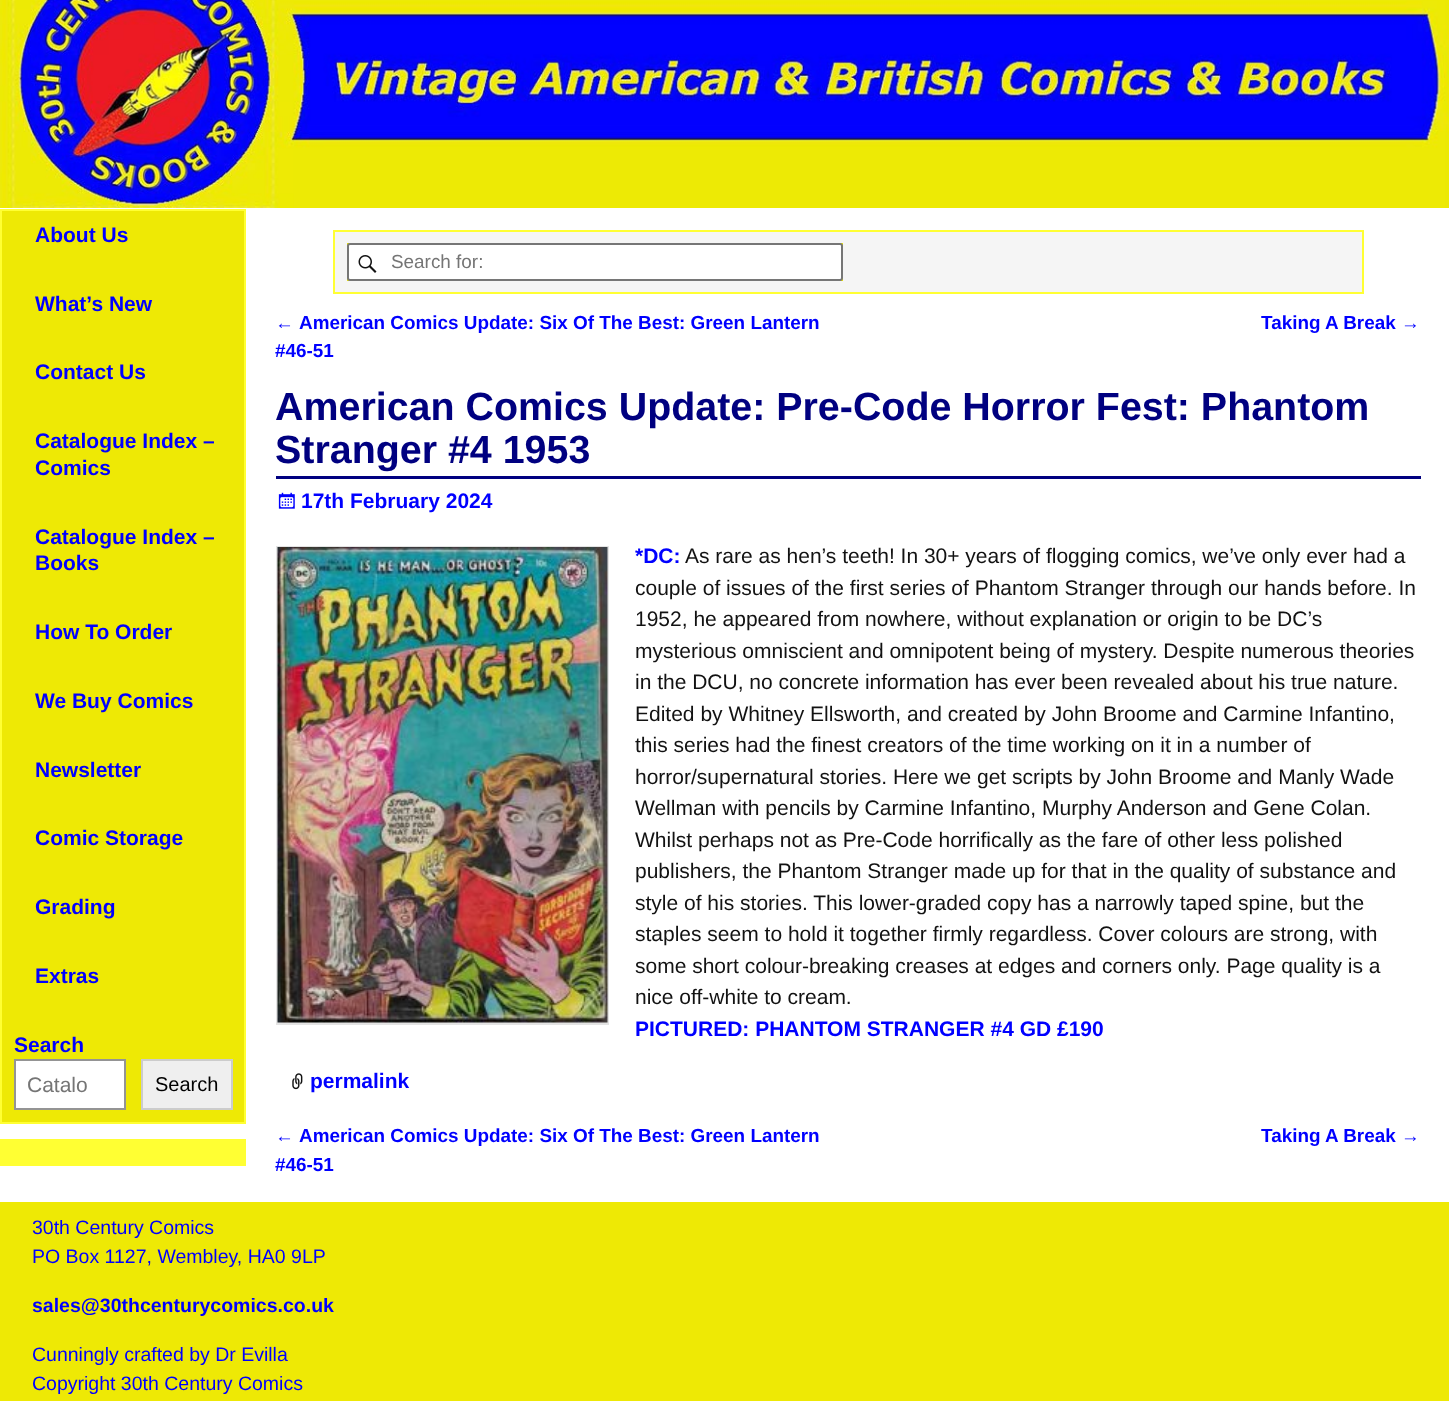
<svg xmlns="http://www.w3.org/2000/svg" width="1449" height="1401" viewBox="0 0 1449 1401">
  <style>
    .t1 { font: bold 21px Liberation Sans; fill: #00f; }
    .t2 { font: 21px Liberation Sans; fill: #757575; }
    .t3 { font: 20px Liberation Sans; fill: #000; }
    .t4 { font: 18.9px Liberation Sans; fill: #757575; }
    .t5 { font: 18.9px Liberation Sans; fill: #00f; }
    .t6 { font: bold 18.9px Liberation Sans; fill: #00f; }
    .t7 { font: bold 39.4px Liberation Sans; fill: #000080; }
    .t8 { font: 21px Liberation Sans; fill: #121212; }
    .t9 { font: 19.5px Liberation Sans; fill: #00f; }
    .t10 { font: bold 19.5px Liberation Sans; fill: #00f; }
  </style>
  <rect width="100%" height="100%" fill="#fff"/>
  <image x="0" y="0" width="1449" height="208" href="images/1.png"/>
  <rect x="1" y="210" width="244" height="913" fill="#eee905" stroke="#ff3" stroke-width="2"/>
  <text x="35" y="242" class="t1">About Us</text>
  <text x="35" y="311" class="t1">What’s New</text>
  <text x="35" y="379" class="t1">Contact Us</text>
  <text x="35" y="448" class="t1">Catalogue Index –</text>
  <text x="35" y="475" class="t1">Comics</text>
  <text x="35" y="544" class="t1">Catalogue Index –</text>
  <text x="35" y="570" class="t1">Books</text>
  <text x="35" y="639" class="t1">How To Order</text>
  <text x="35" y="708" class="t1">We Buy Comics</text>
  <text x="35" y="777" class="t1">Newsletter</text>
  <text x="35" y="845" class="t1">Comic Storage</text>
  <text x="35" y="914" class="t1">Grading</text>
  <text x="35" y="983" class="t1">Extras</text>
  <text x="14" y="1052" class="t1">Search</text>
  <rect x="15" y="1060" width="110" height="49" fill="#fff" stroke="#949494" stroke-width="2"/>
  <text x="27" y="1092" class="t2">Catalo</text>
  <rect x="142" y="1060" width="90" height="49" fill="#efefef" stroke="#ccc" stroke-width="2"/>
  <text x="155" y="1091" class="t3">Search</text>
  <rect x="0" y="1139" width="246" height="27" fill="#ff3"/>
  <rect x="334" y="231" width="1029" height="62" fill="#f5f5f5" stroke="#ff3" stroke-width="2"/>
  <rect x="347" y="243" width="496" height="38" fill="#eee905"/>
  <rect x="348" y="244" width="494" height="36" rx="2" fill="#fff" stroke="#767676" stroke-width="2"/>
  <image x="358" y="255" width="19" height="18" href="images/2.png"/>
  <text x="391" y="268" class="t4">Search for:</text>
  <text x="275" y="329" class="t5">←</text>
  <text x="299" y="329" class="t6">American Comics Update: Six Of The Best: Green Lantern</text>
  <text x="275" y="357" class="t6">#46-51</text>
  <text x="1261" y="329" class="t6">Taking A Break</text>
  <text x="1401" y="329" class="t5">→</text>
  <rect x="276" y="476" width="1145" height="3" fill="#000080"/>
  <text x="275" y="420" class="t7">American Comics Update: Pre-Code Horror Fest: Phantom</text>
  <text x="275" y="463" class="t7">Stranger #4 1953</text>
  <image x="278" y="492" width="17" height="17" href="images/3.png"/>
  <text x="301" y="508" class="t1">17th February 2024</text>
  <rect x="276" y="546" width="333" height="479" fill="#e3e3e3"/>
  <image x="277" y="547" width="331" height="476" href="images/4.png"/>
  <text x="635" y="563" class="t1">*DC:</text>
  <text x="685" y="563" class="t8">As rare as hen’s teeth! In 30+ years of flogging comics, we’ve only ever had a</text>
  <text x="635" y="595" class="t8">couple of issues of the first series of Phantom Stranger through our hands before. In</text>
  <text x="635" y="626" class="t8">1952, he appeared from nowhere, without explanation or origin to be DC’s</text>
  <text x="635" y="658" class="t8">mysterious omniscient and omnipotent being of mystery. Despite numerous theories</text>
  <text x="635" y="689" class="t8">in the DCU, no concrete information has ever been revealed about his true nature.</text>
  <text x="635" y="721" class="t8">Edited by Whitney Ellsworth, and created by John Broome and Carmine Infantino,</text>
  <text x="635" y="752" class="t8">this series had the finest creators of the time working on it in a number of</text>
  <text x="635" y="784" class="t8">horror/supernatural stories. Here we get scripts by John Broome and Manly Wade</text>
  <text x="635" y="815" class="t8">Wellman with pencils by Carmine Infantino, Murphy Anderson and Gene Colan.</text>
  <text x="635" y="847" class="t8">Whilst perhaps not as Pre-Code horrifically as the fare of other less polished</text>
  <text x="635" y="878" class="t8">publishers, the Phantom Stranger made up for that in the quality of substance and</text>
  <text x="635" y="910" class="t8">style of his stories. This lower-graded copy has a narrowly taped spine, but the</text>
  <text x="635" y="941" class="t8">staples seem to hold it together firmly regardless. Cover colours are strong, with</text>
  <text x="635" y="973" class="t8">some short colour-breaking creases at edges and corners only. Page quality is a</text>
  <text x="635" y="1004" class="t8">nice off-white to cream.</text>
  <text x="635" y="1036" class="t1">PICTURED: PHANTOM STRANGER #4 GD £190</text>
  <image x="292" y="1073" width="11" height="17" href="images/5.png"/>
  <text x="310" y="1088" class="t1">permalink</text>
  <text x="275" y="1142" class="t5">←</text>
  <text x="299" y="1142" class="t6">American Comics Update: Six Of The Best: Green Lantern</text>
  <text x="275" y="1171" class="t6">#46-51</text>
  <text x="1261" y="1142" class="t6">Taking A Break</text>
  <text x="1401" y="1142" class="t5">→</text>
  <rect x="0" y="1202" width="1449" height="199" fill="#eee905"/>
  <text x="32" y="1234" class="t9">30th Century Comics</text>
  <text x="32" y="1263" class="t9">PO Box 1127, Wembley, HA0 9LP</text>
  <text x="32" y="1312" class="t10">sales@30thcenturycomics.co.uk</text>
  <text x="32" y="1361" class="t9">Cunningly crafted by Dr Evilla</text>
  <text x="32" y="1390" class="t9">Copyright 30th Century Comics</text>
</svg>
